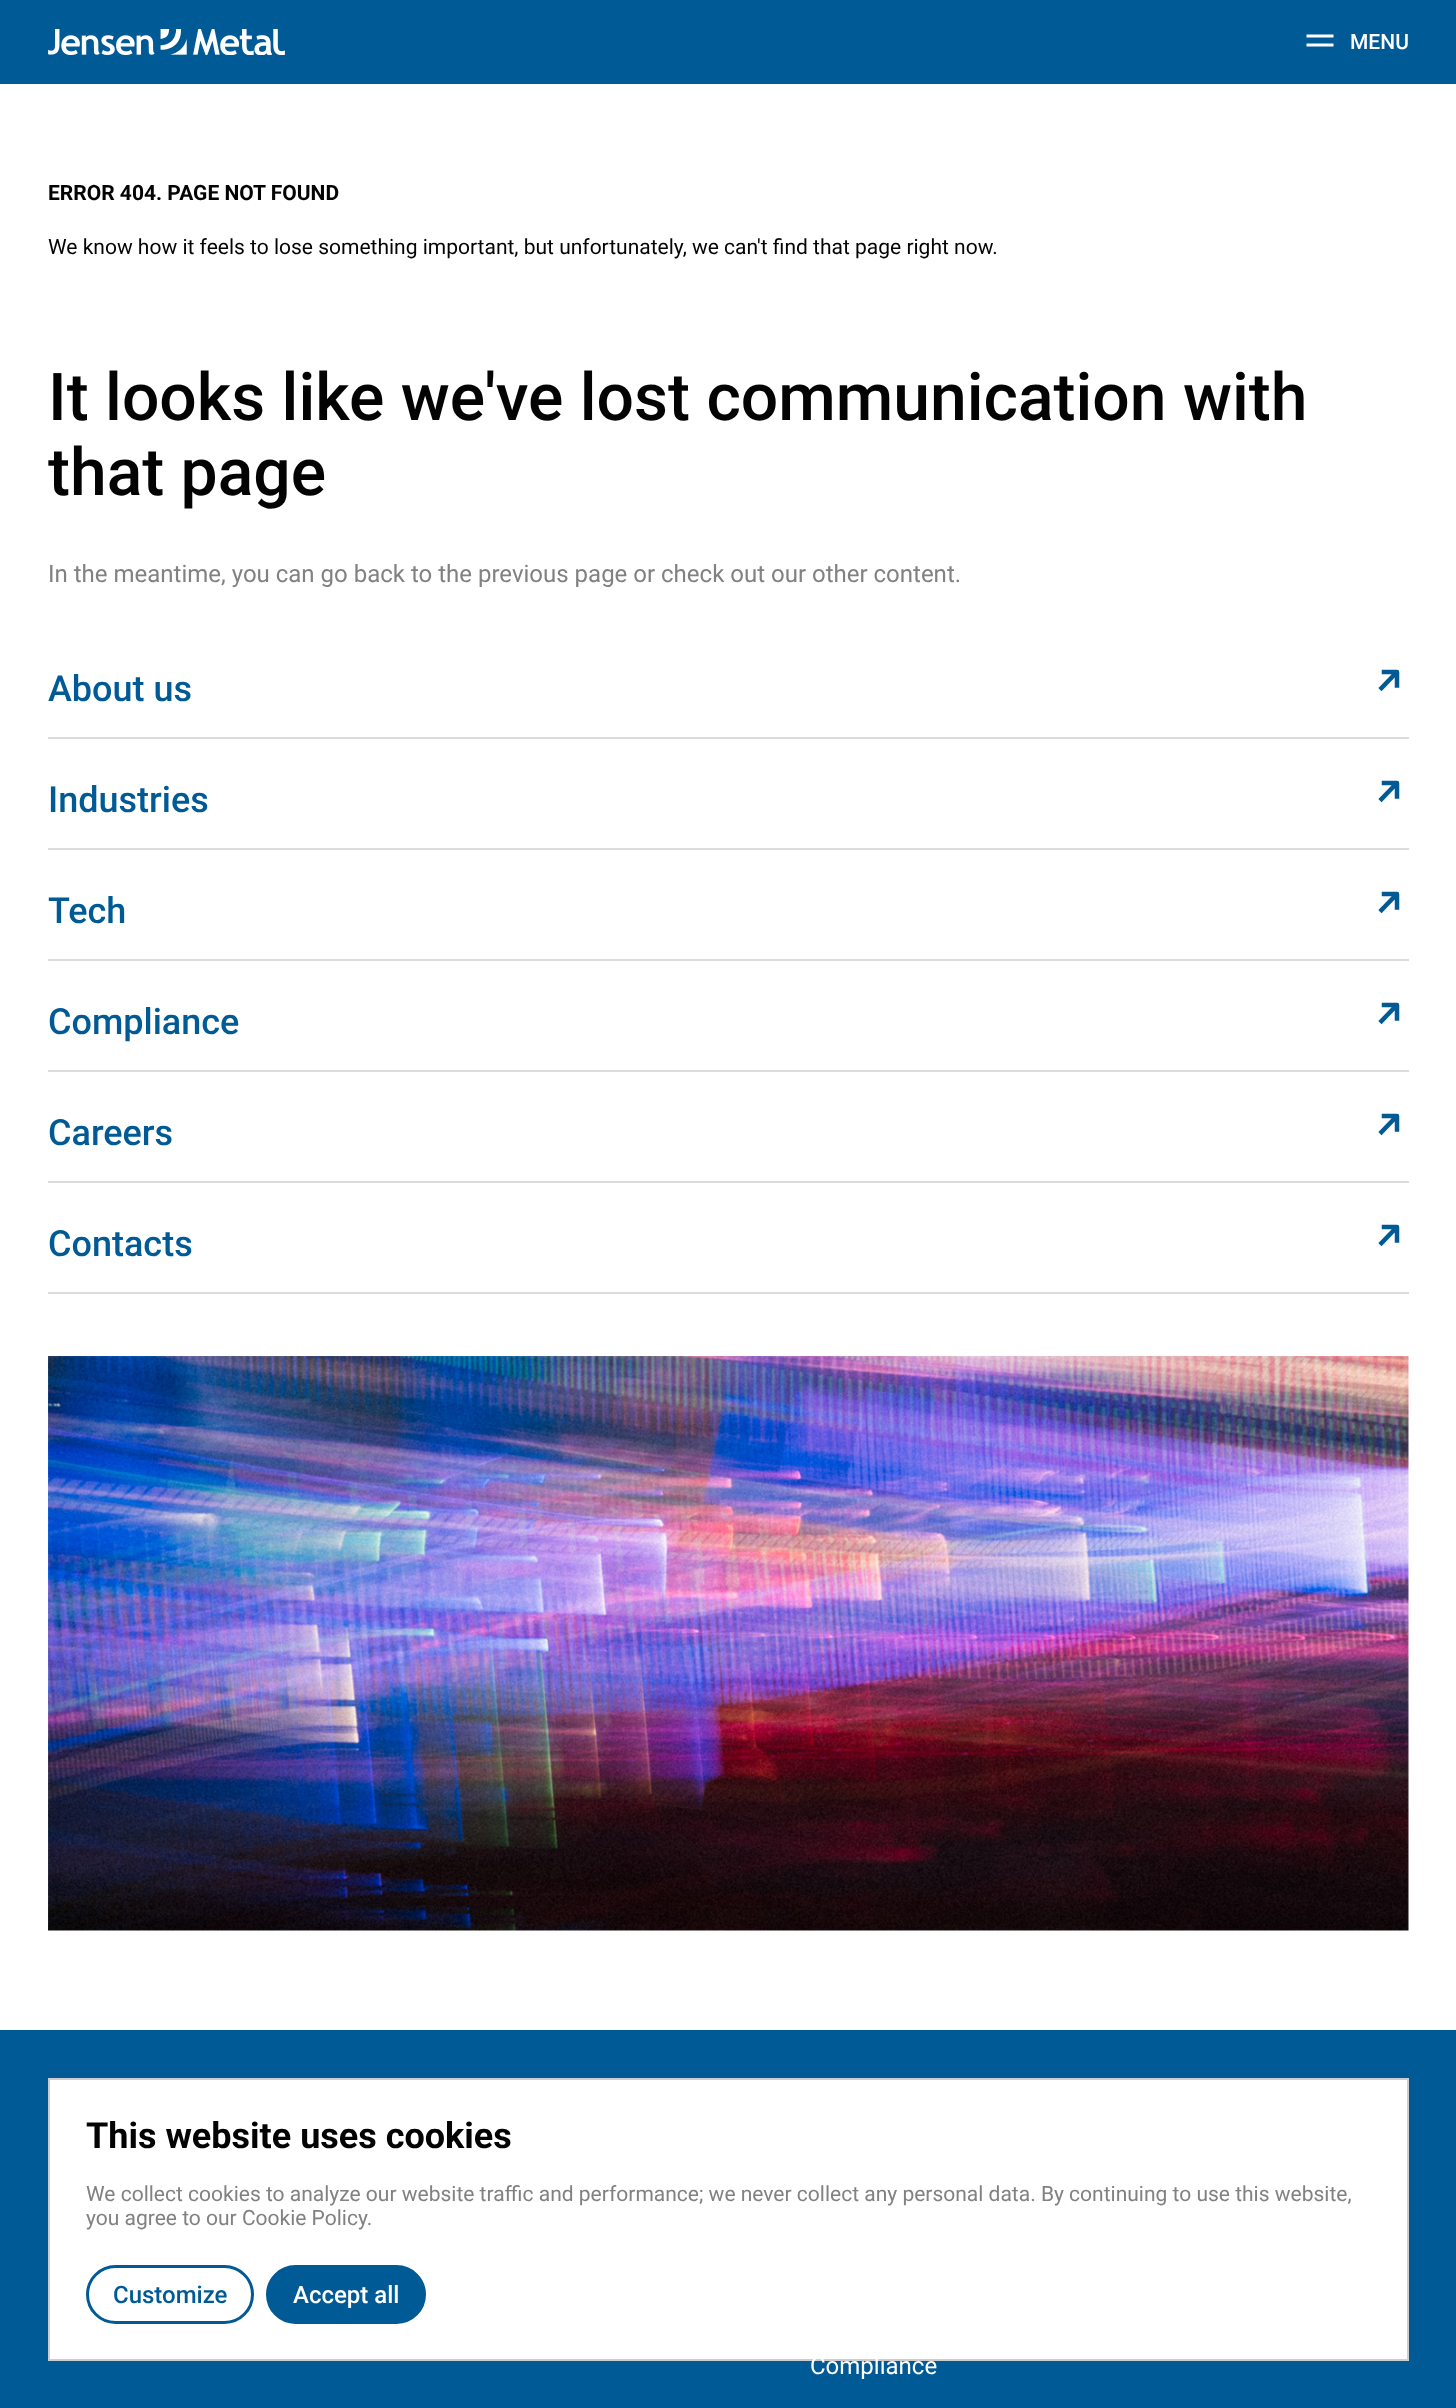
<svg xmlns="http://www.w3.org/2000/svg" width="1456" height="2408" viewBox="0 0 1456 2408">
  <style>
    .t1 { font: 500 21px Roboto; fill: #fff; }
    .t2 { font: bold 21px Roboto; fill: #030303; }
    .t3 { font: 21px Roboto; fill: #030303; }
    .t4 { font: 500 66px Roboto; fill: #030303; }
    .t5 { font: 24px Roboto; fill: #818181; }
    .t6 { font: 500 36px Roboto; fill: #005a96; }
    .t7 { font: bold 36px Roboto; fill: #030303; }
    .t8 { font: 21px Roboto; fill: #818181; }
    .t9 { font: 500 24px Roboto; fill: #005a96; }
    .t10 { font: 500 24px Roboto; fill: #fff; }
    .t11 { font: 24px Roboto; fill: #fff; }
  </style>
  <rect width="100%" height="100%" fill="#fff"/>
  <rect x="0" y="0" width="1456" height="84" fill="#005a96"/>
  <image x="48" y="29" width="237" height="26" href="images/1.png"/>
  <path d="M1306.5 45H1333.5M1306.5 36H1333.5" fill="none" stroke="#fff" stroke-width="3"/>
  <text x="1350" y="49" class="t1">MENU</text>
  <text x="48" y="200" class="t2">ERROR 404. PAGE NOT FOUND</text>
  <text x="48" y="254" class="t3">We know how it feels to lose something important, but unfortunately, we can't find that page right now.</text>
  <text x="48" y="420" class="t4">It looks like we've lost communication with</text>
  <text x="48" y="495" class="t4">that page</text>
  <text x="48" y="582" class="t5">In the meantime, you can go back to the previous page or check out our other content.</text>
  <rect x="48" y="737" width="1361" height="2" fill="#dcdcdc"/>
  <text x="48" y="701" class="t6">About us</text>
  <path d="M1381.5 688L1395 674M1384 672H1397V685.5" fill="none" stroke="#005a96" stroke-width="4.5" stroke-linecap="square" stroke-linejoin="round"/>
  <rect x="48" y="848" width="1361" height="2" fill="#dcdcdc"/>
  <text x="48" y="812" class="t6">Industries</text>
  <path d="M1381.5 799L1395 785M1384 783H1397V796.5" fill="none" stroke="#005a96" stroke-width="4.5" stroke-linecap="square" stroke-linejoin="round"/>
  <rect x="48" y="959" width="1361" height="2" fill="#dcdcdc"/>
  <text x="48" y="923" class="t6">Tech</text>
  <path d="M1381.5 910L1395 896M1384 894H1397V907.5" fill="none" stroke="#005a96" stroke-width="4.5" stroke-linecap="square" stroke-linejoin="round"/>
  <rect x="48" y="1070" width="1361" height="2" fill="#dcdcdc"/>
  <text x="48" y="1034" class="t6">Compliance</text>
  <path d="M1381.5 1021L1395 1007M1384 1005H1397V1018.5" fill="none" stroke="#005a96" stroke-width="4.5" stroke-linecap="square" stroke-linejoin="round"/>
  <rect x="48" y="1181" width="1361" height="2" fill="#dcdcdc"/>
  <text x="48" y="1145" class="t6">Careers</text>
  <path d="M1381.5 1132L1395 1118M1384 1116H1397V1129.5" fill="none" stroke="#005a96" stroke-width="4.5" stroke-linecap="square" stroke-linejoin="round"/>
  <rect x="48" y="1292" width="1361" height="2" fill="#dcdcdc"/>
  <text x="48" y="1256" class="t6">Contacts</text>
  <path d="M1381.5 1243L1395 1229M1384 1227H1397V1240.5" fill="none" stroke="#005a96" stroke-width="4.5" stroke-linecap="square" stroke-linejoin="round"/>
  <image x="48" y="1356" width="1361" height="575" href="images/2.png"/>
  <rect x="0" y="2030" width="1456" height="378" fill="#005a96"/>
  <rect x="49" y="2079" width="1359" height="281" fill="#fff" stroke="#cdcdcd" stroke-width="2"/>
  <text x="86" y="2148" class="t7">This website uses cookies</text>
  <text x="86" y="2201" class="t8">We collect cookies to analyze our website traffic and performance; we never collect any personal data. By continuing to use this website,</text>
  <text x="86" y="2225" class="t8">you agree to our Cookie Policy.</text>
  <rect x="87.5" y="2266.5" width="165" height="56" rx="28" fill="none" stroke="#005a96" stroke-width="3"/>
  <text x="113" y="2303" class="t9">Customize</text>
  <rect x="267.5" y="2266.5" width="157" height="56" rx="28" fill="#005a96" stroke="#005a96" stroke-width="3"/>
  <text x="293" y="2303" class="t10">Accept all</text>
  <text x="810" y="2374" class="t11">Compliance</text>
</svg>
